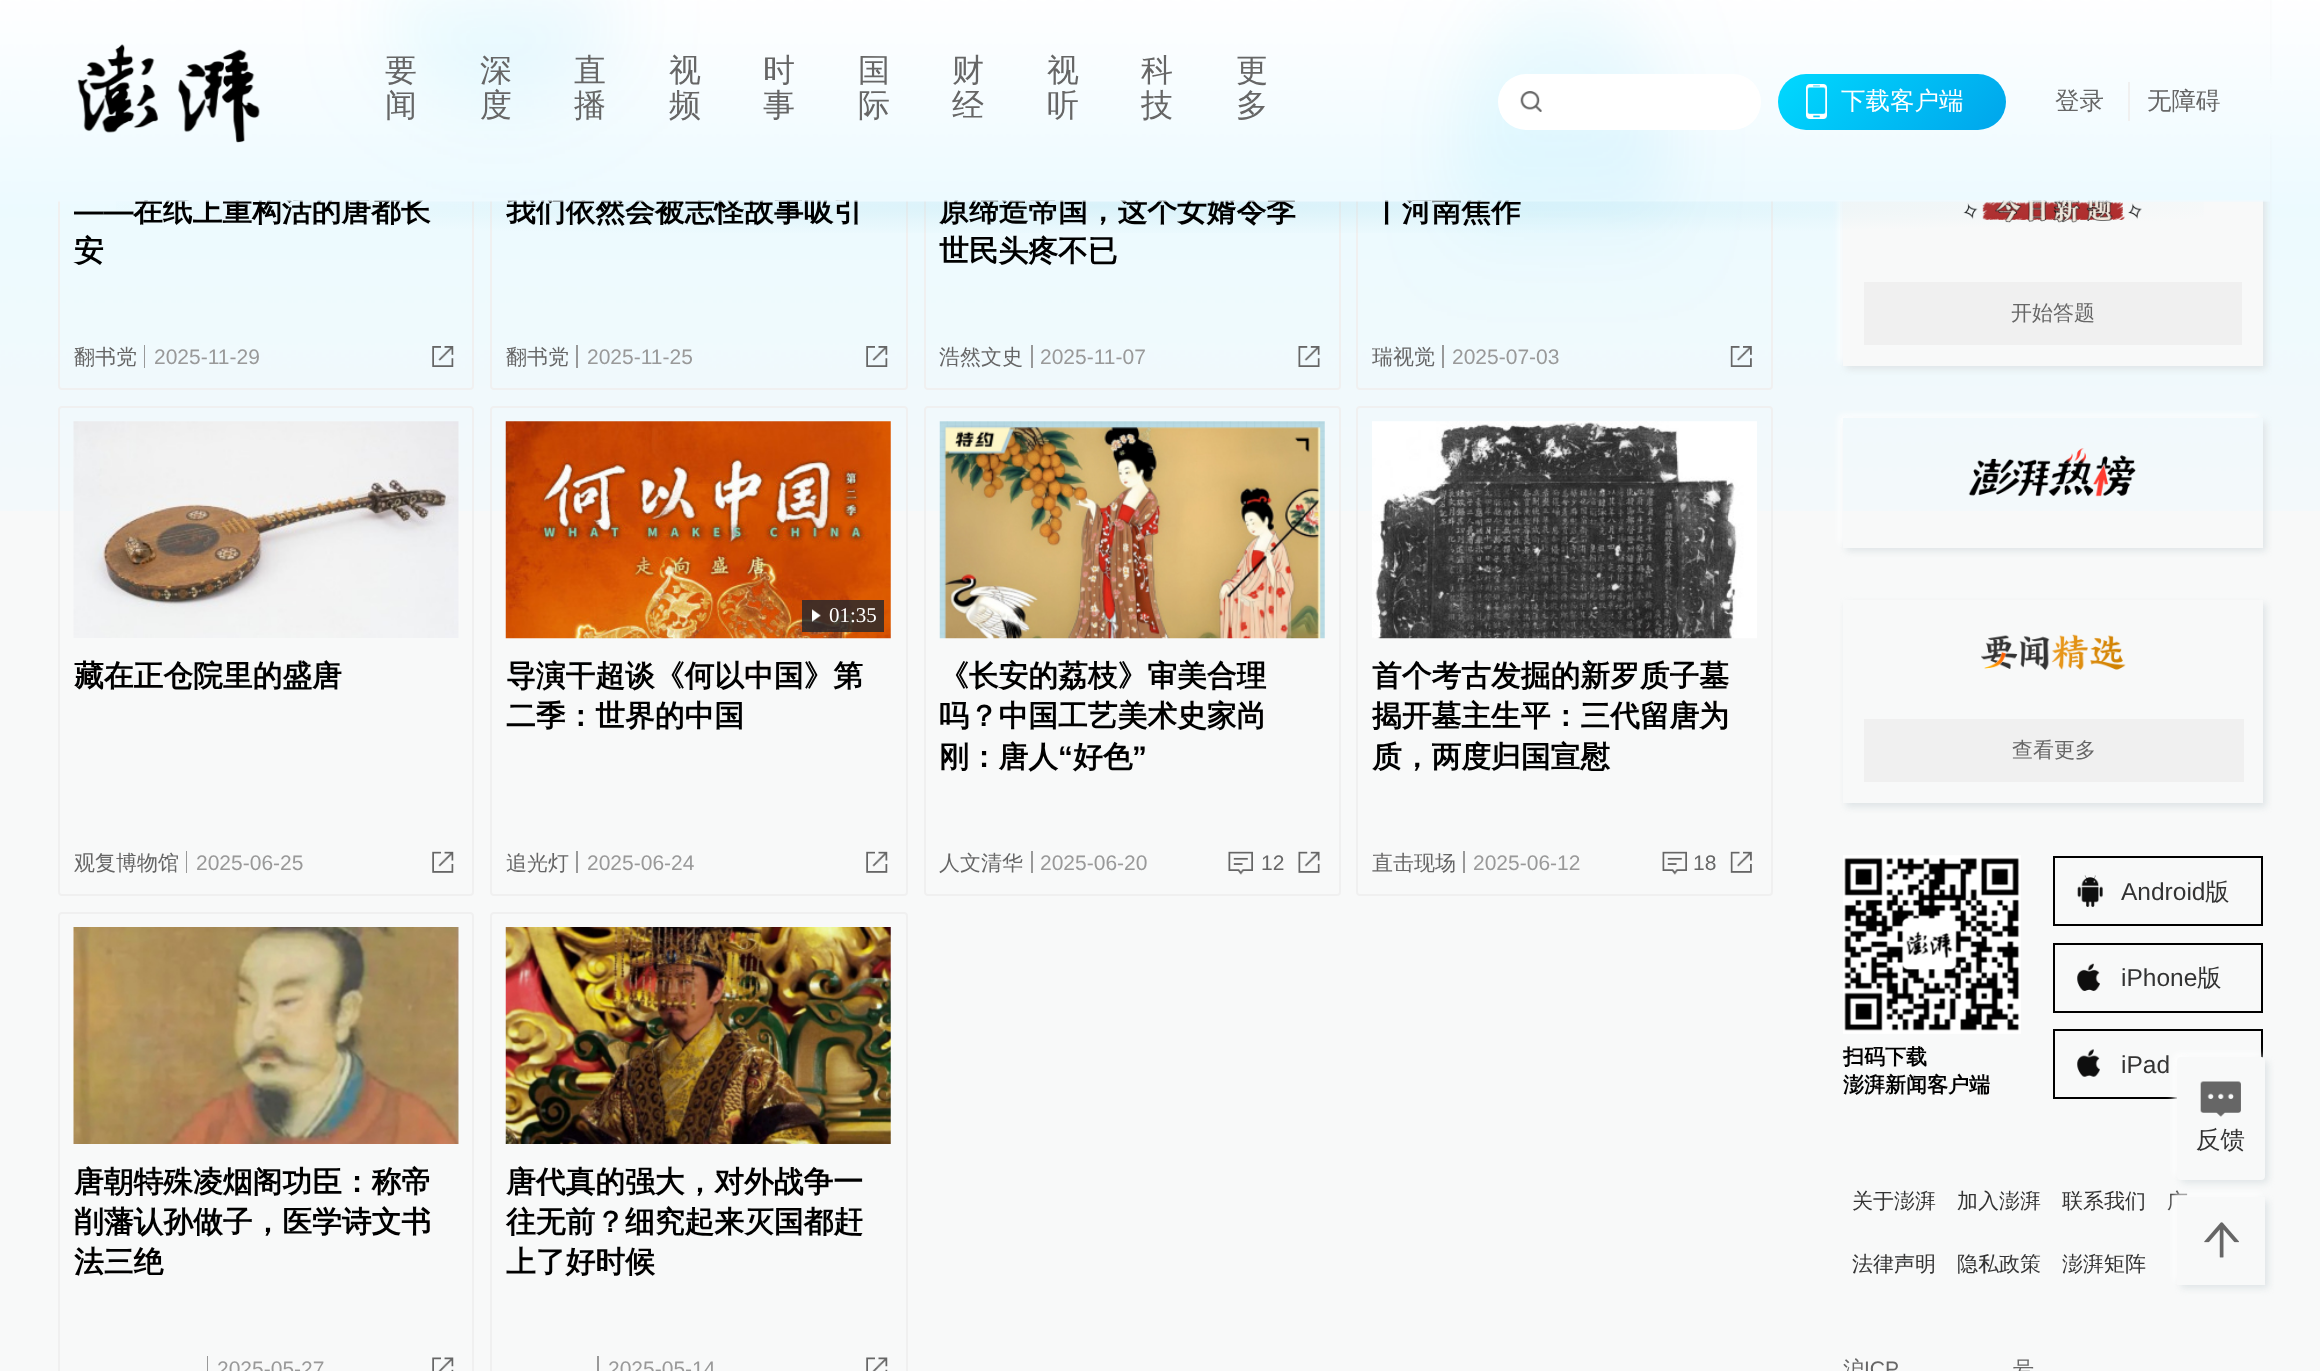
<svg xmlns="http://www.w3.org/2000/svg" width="2320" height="1371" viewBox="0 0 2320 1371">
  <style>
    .t1 { font: bold 29.75px WenQuanYi Zen Hei; fill: #000; }
    .t2 { font: 500 32px WenQuanYi Zen Hei; fill: #666; }
    .t3 { font: 500 24.5px WenQuanYi Zen Hei; fill: #fff; }
    .t4 { font: 500 24.5px WenQuanYi Zen Hei; fill: #666; }
    .t5 { font: bold 29.75px Liberation Sans; fill: #000; }
    .t6 { font: 500 21px WenQuanYi Zen Hei; fill: #666; }
    .t7 { font: 21px Liberation Sans; fill: #999; }
    .t8 { font: 21px Liberation Serif; fill: #fff; }
    .t9 { font: 21px Liberation Sans; fill: #666; }
    .t10 { font: bold 21px WenQuanYi Zen Hei; fill: #000; }
    .t11 { font: 24.5px Liberation Sans; fill: #333; }
    .t12 { font: 500 24.5px WenQuanYi Zen Hei; fill: #333; }
    .t13 { font: 500 21px WenQuanYi Zen Hei; fill: #333; }
  </style>
  <defs>
    <radialGradient id="g1" gradientUnits="userSpaceOnUse" cx="0" cy="0" r="1" gradientTransform="matrix(1160 0 0 32 1160 205)"><stop offset="0" stop-color="#89cfe4" stop-opacity="0.2"/><stop offset="0.5" stop-color="#90d1e4" stop-opacity="0.1"/><stop offset="1" stop-color="#90d1e4" stop-opacity="0"/></radialGradient>
    <linearGradient id="g2" gradientUnits="userSpaceOnUse" x1="1821" y1="31" x2="1963" y2="172"><stop offset="0" stop-color="#00d9ff"/><stop offset="1" stop-color="#00a5eb"/></linearGradient>
    <clipPath id="clip1"><rect x="1372" y="341" width="72" height="32"/></clipPath>
    <clipPath id="clip2"><path d="M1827 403H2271V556H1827ZM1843 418H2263V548H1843Z" clip-rule="evenodd"/></clipPath>
    <clipPath id="clip3"><path d="M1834 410H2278V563H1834ZM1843 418H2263V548H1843Z" clip-rule="evenodd"/></clipPath>
    <clipPath id="clip4"><path d="M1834 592H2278V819H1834ZM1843 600H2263V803H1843Z" clip-rule="evenodd"/></clipPath>
  </defs>
  <rect width="100%" height="100%" fill="#f8f9f9"/>
  <image x="0" y="0" width="2320" height="511" href="images/1.png"/>
  <rect x="59" y="-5" width="414" height="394" rx="3" fill="none" stroke="#f0f0f0" stroke-width="2"/>
  <rect x="491" y="-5" width="416" height="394" rx="3" fill="none" stroke="#f0f0f0" stroke-width="2"/>
  <rect x="925" y="-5" width="415" height="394" rx="3" fill="none" stroke="#f0f0f0" stroke-width="2"/>
  <rect x="1357" y="-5" width="415" height="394" rx="3" fill="none" stroke="#f0f0f0" stroke-width="2"/>
  <rect x="1839" y="128" width="420" height="234" fill="#fff" filter="blur(3.5px)"/>
  <rect x="1846" y="135" width="420" height="234" fill="#dee4e6" filter="blur(3.5px)"/>
  <rect x="1843" y="200" width="420" height="166" fill="#f8f9f9"/>
  <image x="1963" y="200" width="179" height="23" href="images/25.png"/>
  <rect x="116" y="201" width="2088" height="32" fill="url(#g1)"/>
  <text x="133" y="221" class="t1">在纸上重构活的唐都长</text>
  <text x="506" y="221" class="t1">我们依然会被志怪故事吸引</text>
  <text x="939" y="221" class="t1">原缔造帝国，这个女婿令李</text>
  <text x="1372" y="221" class="t1">丨河南焦作</text>
  <rect x="1846" y="-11" width="420" height="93" fill="#dee4e6" filter="blur(3.5px)"/>
  <image x="58" y="0" width="2212" height="202" href="images/2.png"/>
  <image x="77" y="44" width="183" height="99" href="images/3.png"/>
  <text x="385" y="81" class="t2">要</text>
  <text x="385" y="116" class="t2">闻</text>
  <text x="480" y="81" class="t2">深</text>
  <text x="480" y="116" class="t2">度</text>
  <text x="574" y="81" class="t2">直</text>
  <text x="574" y="116" class="t2">播</text>
  <text x="669" y="81" class="t2">视</text>
  <text x="669" y="116" class="t2">频</text>
  <text x="763" y="81" class="t2">时</text>
  <text x="763" y="116" class="t2">事</text>
  <text x="858" y="81" class="t2">国</text>
  <text x="858" y="116" class="t2">际</text>
  <text x="952" y="81" class="t2">财</text>
  <text x="952" y="116" class="t2">经</text>
  <text x="1047" y="81" class="t2">视</text>
  <text x="1047" y="116" class="t2">听</text>
  <text x="1141" y="81" class="t2">科</text>
  <text x="1141" y="116" class="t2">技</text>
  <text x="1236" y="81" class="t2">更</text>
  <text x="1236" y="116" class="t2">多</text>
  <rect x="1498" y="74" width="263" height="56" rx="28" fill="#fff"/>
  <image x="1520" y="91" width="22" height="21" href="images/4.png"/>
  <rect x="1778" y="74" width="228" height="56" rx="28" fill="url(#g2)"/>
  <image x="1806" y="84" width="21" height="35" href="images/5.png"/>
  <text x="1841" y="109" class="t3">下载客户端</text>
  <text x="2055" y="109" class="t4">登录</text>
  <rect x="2128" y="82" width="2" height="39" fill="#f0f0f0"/>
  <text x="2147" y="109" class="t4">无障碍</text>
  <text x="74" y="221" class="t5">——</text>
  <text x="74" y="261" class="t1">安</text>
  <text x="74" y="364" class="t6">翻书党</text>
  <rect x="144" y="345" width="1" height="23" fill="#999"/>
  <text x="154" y="364" class="t7">2025-11-29</text>
  <image x="432" y="346" width="22" height="21" href="images/6.png"/>
  <text x="506" y="364" class="t6">翻书党</text>
  <rect x="576" y="345" width="2" height="23" fill="#999"/>
  <text x="587" y="364" class="t7">2025-11-25</text>
  <image x="866" y="346" width="22" height="21" href="images/7.png"/>
  <text x="939" y="261" class="t1">世民头疼不已</text>
  <text x="939" y="364" class="t6">浩然文史</text>
  <rect x="1031" y="345" width="2" height="23" fill="#999"/>
  <text x="1040" y="364" class="t7">2025-11-07</text>
  <image x="1298" y="346" width="22" height="21" href="images/8.png"/>
  <g clip-path="url(#clip1)">
    <text x="1372" y="364" class="t6">瑞视觉</text>
  </g>
  <rect x="1442" y="345" width="2" height="23" fill="#999"/>
  <text x="1452" y="364" class="t7">2025-07-03</text>
  <image x="1730" y="346" width="22" height="21" href="images/9.png"/>
  <rect x="59" y="407" width="414" height="488" rx="3" fill="none" stroke="#f0f0f0" stroke-width="2"/>
  <image x="73" y="421" width="386" height="217" href="images/10.png"/>
  <text x="74" y="686" class="t1">藏在正仓院里的盛唐</text>
  <text x="74" y="870" class="t6">观复博物馆</text>
  <rect x="186" y="851" width="1" height="22" fill="#999"/>
  <text x="196" y="870" class="t7">2025-06-25</text>
  <image x="432" y="851" width="22" height="22" href="images/11.png"/>
  <rect x="491" y="407" width="416" height="488" rx="3" fill="none" stroke="#f0f0f0" stroke-width="2"/>
  <image x="505" y="421" width="386" height="218" href="images/12.png"/>
  <rect x="802" y="600" width="82" height="32" fill="#20272ecc"/>
  <image x="812" y="609" width="9" height="13" href="images/13.png"/>
  <text x="829" y="622" class="t8">01:35</text>
  <text x="506" y="686" class="t1">导演干超谈《何以中国》第</text>
  <text x="506" y="726" class="t1">二季：世界的中国</text>
  <text x="506" y="870" class="t6">追光灯</text>
  <rect x="576" y="851" width="2" height="22" fill="#999"/>
  <text x="587" y="870" class="t7">2025-06-24</text>
  <image x="866" y="851" width="22" height="22" href="images/14.png"/>
  <rect x="925" y="407" width="415" height="488" rx="3" fill="none" stroke="#f0f0f0" stroke-width="2"/>
  <image x="939" y="421" width="386" height="218" href="images/15.png"/>
  <text x="939" y="686" class="t1">《长安的荔枝》审美合理</text>
  <text x="939" y="726" class="t1">吗？中国工艺美术史家尚</text>
  <text x="939" y="767" class="t1">刚：唐人</text>
  <text x="1058" y="767" class="t5">“</text>
  <text x="1073" y="767" class="t1">好色</text>
  <text x="1132" y="767" class="t5">”</text>
  <text x="939" y="870" class="t6">人文清华</text>
  <rect x="1031" y="851" width="2" height="22" fill="#999"/>
  <text x="1040" y="870" class="t7">2025-06-20</text>
  <image x="1228" y="851" width="25" height="24" href="images/16.png"/>
  <text x="1261" y="870" class="t9">12</text>
  <image x="1298" y="851" width="22" height="22" href="images/17.png"/>
  <rect x="1357" y="407" width="415" height="488" rx="3" fill="none" stroke="#f0f0f0" stroke-width="2"/>
  <image x="1372" y="421" width="385" height="218" href="images/18.png"/>
  <text x="1372" y="686" class="t1">首个考古发掘的新罗质子墓</text>
  <text x="1372" y="726" class="t1">揭开墓主生平：三代留唐为</text>
  <text x="1372" y="767" class="t1">质，两度归国宣慰</text>
  <text x="1372" y="870" class="t6">直击现场</text>
  <rect x="1463" y="851" width="2" height="22" fill="#999"/>
  <text x="1473" y="870" class="t7">2025-06-12</text>
  <image x="1662" y="851" width="25" height="24" href="images/19.png"/>
  <text x="1693" y="870" class="t9">18</text>
  <image x="1730" y="851" width="22" height="22" href="images/20.png"/>
  <rect x="59" y="913" width="414" height="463" rx="3" fill="none" stroke="#f0f0f0" stroke-width="2"/>
  <image x="73" y="927" width="386" height="217" href="images/21.png"/>
  <text x="74" y="1192" class="t1">唐朝特殊凌烟阁功臣：称帝</text>
  <text x="74" y="1232" class="t1">削藩认孙做子，医学诗文书</text>
  <text x="74" y="1272" class="t1">法三绝</text>
  <rect x="207" y="1356" width="1" height="15" fill="#999"/>
  <text x="217" y="1376" class="t7">2025-05-27</text>
  <image x="432" y="1357" width="22" height="14" href="images/22.png"/>
  <rect x="491" y="913" width="416" height="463" rx="3" fill="none" stroke="#f0f0f0" stroke-width="2"/>
  <image x="505" y="927" width="386" height="217" href="images/23.png"/>
  <text x="506" y="1192" class="t1">唐代真的强大，对外战争一</text>
  <text x="506" y="1232" class="t1">往无前？细究起来灭国都赶</text>
  <text x="506" y="1272" class="t1">上了好时候</text>
  <rect x="597" y="1356" width="2" height="15" fill="#999"/>
  <text x="608" y="1376" class="t7">2025-05-14</text>
  <image x="866" y="1357" width="22" height="14" href="images/24.png"/>
  <rect x="1864" y="282" width="378" height="63" fill="#f0f0f0"/>
  <text x="2011" y="320" class="t6">开始答题</text>
  <g clip-path="url(#clip2)">
    <rect x="1839" y="415" width="420" height="129" fill="#fff" filter="blur(3.5px)"/>
  </g>
  <g clip-path="url(#clip3)">
    <rect x="1846" y="422" width="420" height="129" fill="#dee4e6" filter="blur(3.5px)"/>
  </g>
  <image x="1968" y="448" width="168" height="49" href="images/26.png"/>
  <g clip-path="url(#clip4)">
    <rect x="1846" y="604" width="420" height="203" fill="#dee4e6" filter="blur(3.5px)"/>
  </g>
  <image x="1981" y="634" width="145" height="36" href="images/27.png"/>
  <rect x="1864" y="719" width="380" height="63" fill="#f0f0f0"/>
  <text x="2012" y="757" class="t6">查看更多</text>
  <image x="1843" y="855" width="178" height="179" href="images/28.png"/>
  <text x="1843" y="1064" class="t10">扫码下载</text>
  <text x="1843" y="1092" class="t10">澎湃新闻客户端</text>
  <rect x="2054" y="857" width="208" height="68" fill="none" stroke="#000" stroke-width="2"/>
  <image x="2077" y="875" width="26" height="32" href="images/29.png"/>
  <text x="2121" y="900" class="t11">Android</text>
  <text x="2205" y="900" class="t12">版</text>
  <rect x="2054" y="944" width="208" height="68" fill="none" stroke="#000" stroke-width="2"/>
  <image x="2077" y="963" width="23" height="28" href="images/30.png"/>
  <text x="2121" y="986" class="t11">iPhone</text>
  <text x="2197" y="986" class="t12">版</text>
  <rect x="2054" y="1030" width="208" height="68" fill="none" stroke="#000" stroke-width="2"/>
  <image x="2077" y="1049" width="23" height="28" href="images/31.png"/>
  <text x="2121" y="1073" class="t11">iPad</text>
  <text x="1852" y="1208" class="t13">关于澎湃</text>
  <text x="1957" y="1208" class="t13">加入澎湃</text>
  <text x="2062" y="1208" class="t13">联系我们</text>
  <text x="2167" y="1208" class="t13">广</text>
  <text x="1852" y="1271" class="t13">法律声明</text>
  <text x="1957" y="1271" class="t13">隐私政策</text>
  <text x="2062" y="1271" class="t13">澎湃矩阵</text>
  <text x="1843" y="1376" class="t6">沪</text>
  <text x="1864" y="1376" class="t9">ICP</text>
  <text x="2013" y="1376" class="t6">号</text>
  <rect x="2174" y="1054" width="87" height="122" rx="4" fill="#fff" filter="blur(3.5px)"/>
  <rect x="2181" y="1061" width="87" height="122" rx="4" fill="#dee4e6" filter="blur(3.5px)"/>
  <rect x="2177" y="1057" width="88" height="123" rx="4" fill="#f8f9f9"/>
  <image x="2200" y="1081" width="41" height="36" href="images/32.png"/>
  <text x="2196" y="1148" class="t12">反馈</text>
  <rect x="2174" y="1194" width="87" height="87" fill="#fff" filter="blur(3.5px)"/>
  <rect x="2181" y="1201" width="87" height="87" fill="#dee4e6" filter="blur(3.5px)"/>
  <rect x="2177" y="1197" width="88" height="88" fill="#f8f9f9"/>
  <image x="2204" y="1222" width="35" height="36" href="images/33.png"/>
</svg>
